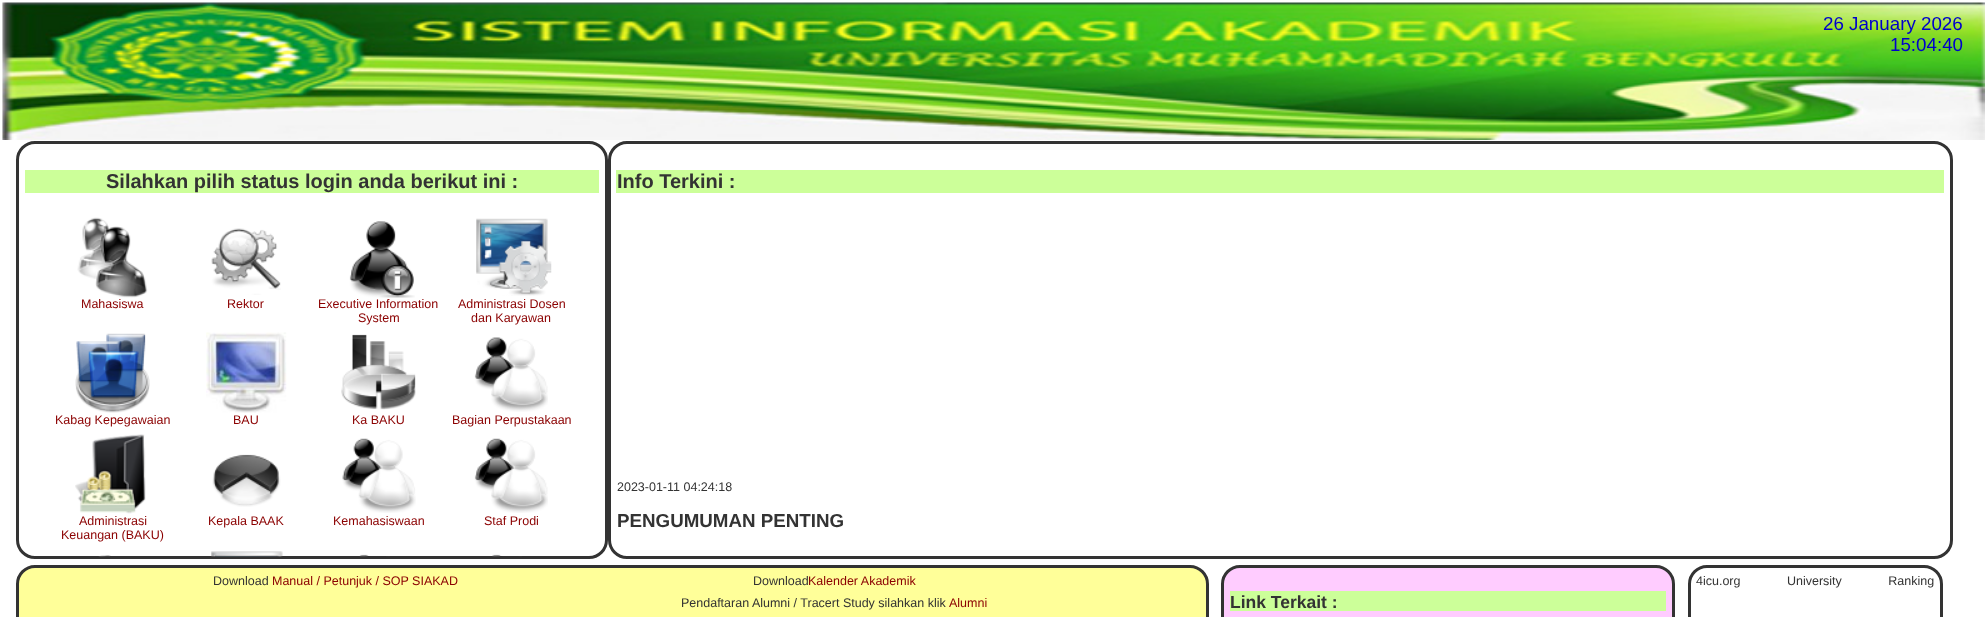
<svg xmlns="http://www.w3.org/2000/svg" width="1987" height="617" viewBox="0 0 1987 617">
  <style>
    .t1 { font: 18.75px Liberation Sans; fill: #00c; }
    .t2 { font: bold 20px Liberation Sans; fill: #333; }
    .t3 { font: 12.5px Liberation Sans; fill: #8b0000; }
    .t4 { font: 12.5px Liberation Sans; fill: #333; }
    .t5 { font: bold 18.75px Liberation Sans; fill: #333; }
    .t6 { font: bold 17.5px Liberation Sans; fill: #333; }
  </style>
  <rect width="100%" height="100%" fill="#fff"/>
  <image x="2" y="2" width="1983" height="138" href="images/1.png"/>
  <text x="1823" y="30" class="t1">26 January 2026</text>
  <text x="1890" y="51" class="t1">15:04:40</text>
  <rect x="17.5" y="142.5" width="589" height="415" rx="17.5" fill="none" stroke="#333" stroke-width="3"/>
  <rect x="25" y="170" width="574" height="23" fill="#cf9"/>
  <text x="106" y="188" class="t2">Silahkan pilih status login anda berikut ini :</text>
  <image x="77" y="217" width="71" height="81" href="images/2.png"/>
  <text x="81" y="308" class="t3">Mahasiswa</text>
  <image x="211" y="228" width="70" height="67" href="images/3.png"/>
  <text x="227" y="308" class="t3">Rektor</text>
  <image x="349" y="221" width="66" height="77" href="images/4.png"/>
  <text x="318" y="308" class="t3">Executive Information</text>
  <text x="358" y="322" class="t3">System</text>
  <image x="476" y="218" width="76" height="78" href="images/5.png"/>
  <text x="458" y="308" class="t3">Administrasi Dosen</text>
  <text x="471" y="322" class="t3">dan Karyawan</text>
  <image x="75" y="333" width="75" height="80" href="images/6.png"/>
  <text x="55" y="424" class="t3">Kabag Kepegawaian</text>
  <image x="206" y="332" width="81" height="81" href="images/7.png"/>
  <text x="233" y="424" class="t3">BAU</text>
  <image x="341" y="334" width="75" height="76" href="images/8.png"/>
  <text x="352" y="424" class="t3">Ka BAKU</text>
  <image x="474" y="337" width="74" height="75" href="images/9.png"/>
  <text x="452" y="424" class="t3">Bagian Perpustakaan</text>
  <image x="75" y="434" width="71" height="80" href="images/10.png"/>
  <text x="79" y="525" class="t3">Administrasi</text>
  <text x="61" y="539" class="t3">Keuangan (BAKU)</text>
  <image x="212" y="454" width="69" height="53" href="images/11.png"/>
  <text x="208" y="525" class="t3">Kepala BAAK</text>
  <image x="342" y="438" width="74" height="75" href="images/12.png"/>
  <text x="333" y="525" class="t3">Kemahasiswaan</text>
  <image x="474" y="438" width="74" height="75" href="images/13.png"/>
  <text x="484" y="525" class="t3">Staf Prodi</text>
  <image x="98" y="555" width="13" height="2" href="images/14.png"/>
  <image x="211" y="551" width="72" height="6" href="images/15.png"/>
  <image x="359" y="554" width="31" height="3" href="images/16.png"/>
  <image x="492" y="554" width="30" height="3" href="images/17.png"/>
  <rect x="609.5" y="142.5" width="1342" height="415" rx="17.5" fill="none" stroke="#333" stroke-width="3"/>
  <rect x="616" y="170" width="1328" height="23" fill="#cf9"/>
  <text x="617" y="188" class="t2">Info Terkini :</text>
  <text x="617" y="491" class="t4">2023-01-11 04:24:18</text>
  <text x="617" y="527" class="t5">PENGUMUMAN PENTING</text>
  <rect x="17.5" y="566.5" width="1190" height="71" rx="17.5" fill="#ff9" stroke="#333" stroke-width="3"/>
  <text x="213" y="585" class="t4">Download</text>
  <text x="272" y="585" class="t3">Manual / Petunjuk / SOP SIAKAD</text>
  <text x="753" y="585" class="t4">Download</text>
  <text x="808" y="585" class="t3">Kalender Akademik</text>
  <text x="681" y="607" class="t4">Pendaftaran Alumni / Tracert Study silahkan klik</text>
  <text x="949" y="607" class="t3">Alumni</text>
  <rect x="1689.5" y="566.5" width="252" height="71" rx="17.5" fill="none" stroke="#333" stroke-width="3"/>
  <text x="1696" y="585" word-spacing="43" class="t4">4icu.org University Ranking</text>
  <rect x="1222.5" y="566.5" width="451" height="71" rx="17.5" fill="#fcf" stroke="#333" stroke-width="3"/>
  <rect x="1230" y="591" width="436" height="20" fill="#cf9"/>
  <text x="1230" y="608" class="t6">Link Terkait :</text>
</svg>
